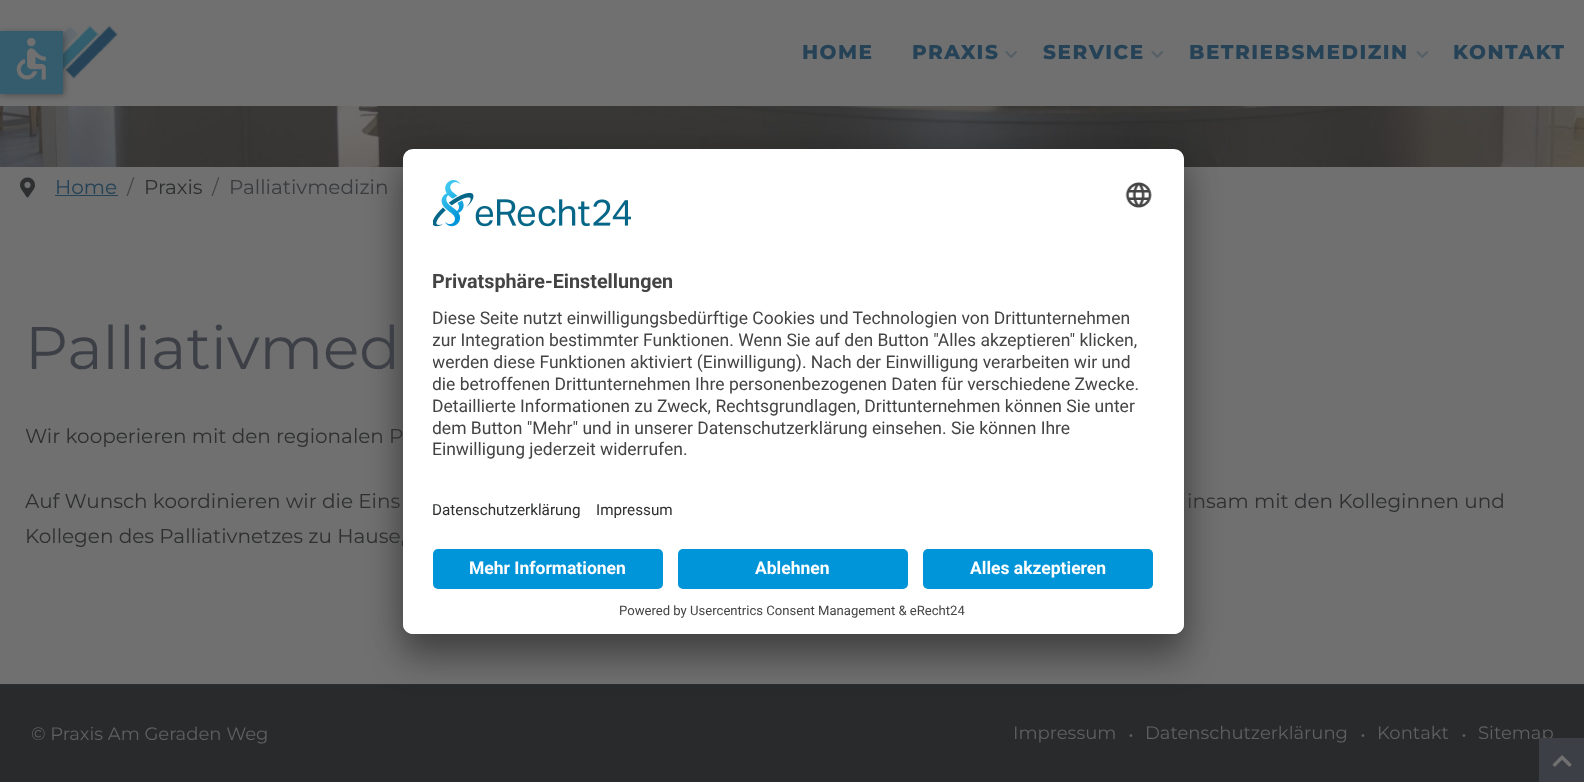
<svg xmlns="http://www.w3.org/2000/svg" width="1584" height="782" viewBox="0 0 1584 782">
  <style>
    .t1 { font: 100 20px 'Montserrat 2'; letter-spacing: 1.5px; fill: #254257; }
    .t2 { font: 100 20px Montserrat; fill: #254257; }
    .t3 { font: 100 20px Montserrat; fill: #44474a; }
    .t4 { font: 100 20px Montserrat; fill: #2e2f30; }
    .t5 { font: 100 20px Montserrat; fill: #393b3e; }
    .t6 { font: bold 19.75px Roboto; fill: #444; }
    .t7 { font: 17.5px Roboto; fill: #444; }
    .t8 { font: 15.25px Roboto; fill: #2e2f30; }
    .t9 { font: bold 17.5px Roboto; fill: #fff; }
    .t10 { font: 13.1px Roboto; fill: #444; }
    .t11 { font: 100 60px Montserrat; fill: #3c3f45; }
    .t12 { font: 100 18px Montserrat; fill: #606060; }
    .t13 { font: 100 12px 'Montserrat 2'; fill: #606060; }
  </style>
  <defs>
    <clipPath id="clip1"><rect x="403" y="149" width="781" height="485" rx="10"/></clipPath>
    <clipPath id="clip2"><path d="M413 149H1174C1179.5 149 1184 153.5 1184 159V539H403V159C403 153.5 407.5 149 413 149Z"/></clipPath>
    <clipPath id="clip3"><rect x="433" y="303" width="721" height="163"/></clipPath>
  </defs>
  <rect width="100%" height="100%" fill="#707070"/>
  <image x="63" y="25" width="55" height="54" href="images/2.png"/>
  <rect x="1" y="33" width="63" height="62" fill="#24242480" filter="blur(3px)"/>
  <rect x="0" y="31" width="63" height="63" fill="#355c6c"/>
  <image x="16" y="37" width="30" height="43" href="images/1.png"/>
  <text x="802" y="59" class="t1">HOME</text>
  <text x="912" y="59" class="t1">PRAXIS</text>
  <image x="1005" y="51" width="12" height="7" href="images/3.png"/>
  <text x="1043" y="59" class="t1">SERVICE</text>
  <image x="1151" y="51" width="13" height="7" href="images/4.png"/>
  <text x="1189" y="59" class="t1">BETRIEBSMEDIZIN</text>
  <image x="1416" y="51" width="13" height="7" href="images/4.png"/>
  <text x="1453" y="59" class="t1">KONTAKT</text>
  <image x="0" y="106" width="1584" height="61" href="images/5.png"/>
  <image x="20" y="177" width="15" height="21" href="images/6.png"/>
  <text x="55" y="194" class="t2">Home</text>
  <rect x="55" y="195" width="63" height="1" fill="#254257"/>
  <text x="127" y="194" class="t3">/</text>
  <text x="144" y="194" class="t4">Praxis</text>
  <text x="212" y="194" class="t3">/</text>
  <text x="229" y="194" class="t5">Palliativmedizin</text>
  <rect x="0" y="685" width="1584" height="97" fill="#292a2b"/>
  <rect x="0" y="684" width="1584" height="1" fill="#2e2e2f"/>
  <rect x="403" y="174" width="781" height="485" rx="10" fill="#0000004d" filter="blur(17.5px)"/>
  <rect x="403" y="155" width="781" height="485" rx="10" fill="#00000038" filter="blur(16px)"/>
  <text x="25" y="543" class="t4">Kollegen des Palliativnetzes zu Hause,</text>
  <rect x="403" y="149" width="781" height="485" rx="10" fill="#fff"/>
  <g clip-path="url(#clip1)">
    <g clip-path="url(#clip2)">
      <rect x="403" y="150" width="781" height="389" fill="#fff"/>
    </g>
  </g>
  <image x="433" y="180" width="198" height="47" href="images/7.png"/>
  <image x="1125" y="182" width="27" height="26" href="images/8.png"/>
  <text x="432" y="288" class="t6">Privatsphäre-Einstellungen</text>
  <text x="432" y="324" class="t7">Diese Seite nutzt einwilligungsbedürftige Cookies und Technologien von Drittunternehmen</text>
  <g clip-path="url(#clip3)">
    <text x="432" y="346" class="t7">zur Integration bestimmter Funktionen. Wenn Sie auf den Button "Alles akzeptieren" klicken,</text>
    <text x="432" y="368" class="t7">werden diese Funktionen aktiviert (Einwilligung). Nach der Einwilligung verarbeiten wir und</text>
    <text x="432" y="390" class="t7">die betroffenen Drittunternehmen Ihre personenbezogenen Daten für verschiedene Zwecke.</text>
  </g>
  <text x="432" y="412" class="t7">Detaillierte Informationen zu Zweck, Rechtsgrundlagen, Drittunternehmen können Sie unter</text>
  <g clip-path="url(#clip3)">
    <text x="432" y="434" class="t7">dem Button "Mehr" und in unserer Datenschutzerklärung einsehen. Sie können Ihre</text>
  </g>
  <text x="432" y="455" class="t7">Einwilligung jederzeit widerrufen.</text>
  <text x="432" y="515" class="t8">Datenschutzerklärung</text>
  <text x="596" y="515" class="t8">Impressum</text>
  <path d="M403 539H1184V624C1184 629.5 1179.5 634 1174 634H413C407.5 634 403 629.5 403 624Z" fill="#fff"/>
  <rect x="433" y="549" width="230" height="40" rx="5" fill="#0094d8"/>
  <text x="469" y="574" class="t9">Mehr Informationen</text>
  <rect x="678" y="549" width="230" height="40" rx="5" fill="#0094d8"/>
  <text x="755" y="574" class="t9">Ablehnen</text>
  <rect x="923" y="549" width="230" height="40" rx="5" fill="#0094d8"/>
  <text x="970" y="574" class="t9">Alles akzeptieren</text>
  <text x="619" y="615" class="t10">Powered by Usercentrics Consent Management &amp; eRecht24</text>
  <text x="25" y="369" class="t11">Palliativmed</text>
  <text x="25" y="443" class="t4">Wir kooperieren mit den regionalen P</text>
  <text x="25" y="508" class="t4">Auf Wunsch koordinieren wir die Eins</text>
  <text x="1187" y="508" class="t4">insam mit den Kolleginnen und</text>
  <text x="31" y="740" class="t12">© Praxis Am Geraden Weg</text>
  <text x="1013" y="739" class="t12">Impressum</text>
  <text x="1129" y="739" class="t13">·</text>
  <text x="1145" y="739" class="t12">Datenschutzerklärung</text>
  <text x="1361" y="739" class="t13">·</text>
  <text x="1377" y="739" class="t12">Kontakt</text>
  <text x="1462" y="739" class="t13">·</text>
  <text x="1478" y="739" class="t12">Sitemap</text>
  <rect x="1539" y="738" width="45" height="44" fill="#3c3f45"/>
  <image x="1552" y="755" width="20" height="12" href="images/9.png"/>
</svg>
